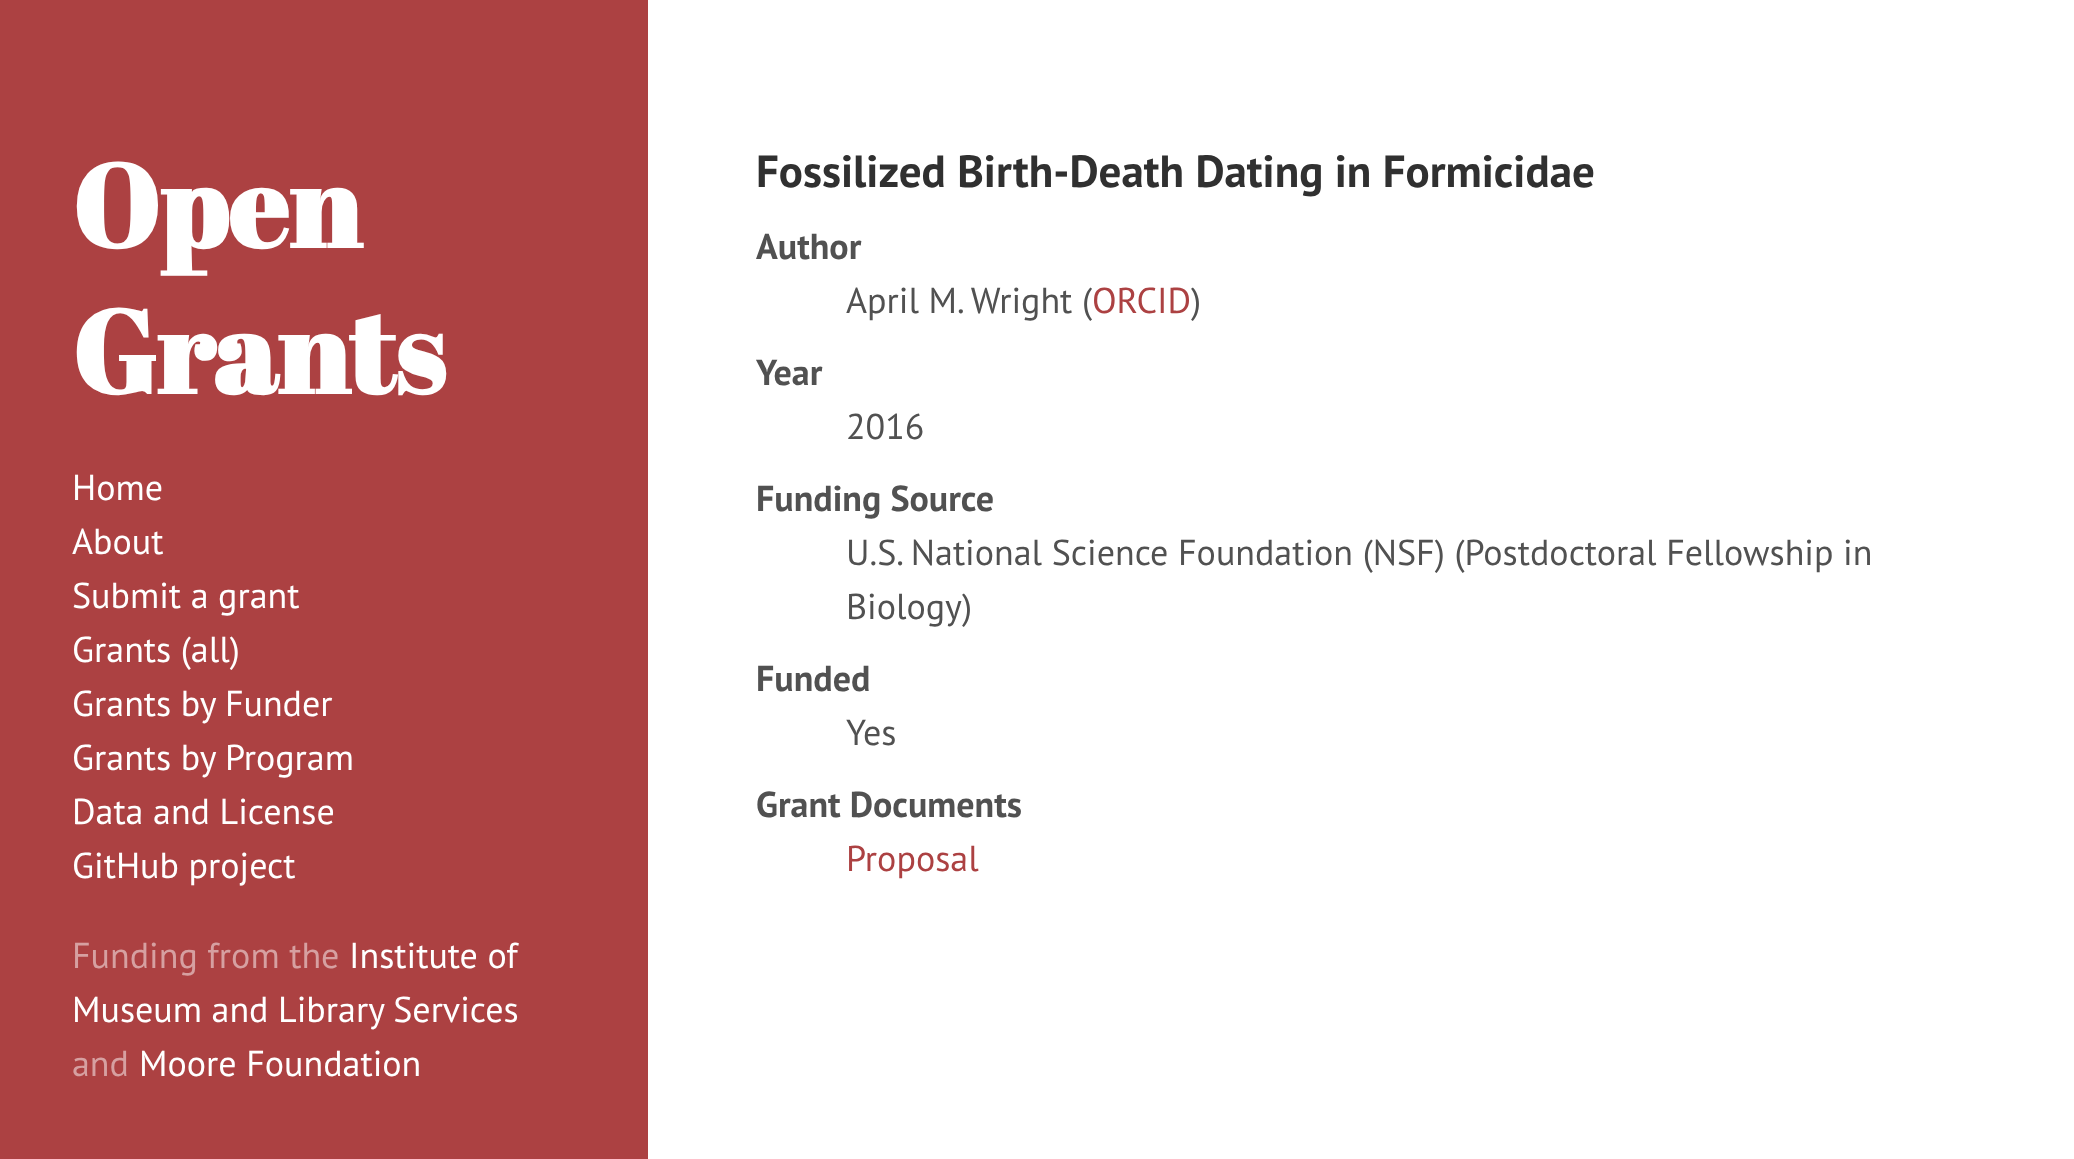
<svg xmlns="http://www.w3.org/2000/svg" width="2074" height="1159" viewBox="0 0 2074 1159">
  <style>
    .t1 { font: bold 117px Abril Fatface; fill: #fff; }
    .t2 { font: 36px PT Sans; fill: #fff; }
    .t3 { font: 36px PT Sans; fill: #d6a0a1; }
    .t4 { font: bold 45px PT Sans; fill: #303030; }
    .t5 { font: bold 36px PT Sans; fill: #515151; }
    .t6 { font: 36px PT Sans; fill: #515151; }
    .t7 { font: 36px PT Sans; fill: #ac4142; }
  </style>
  <rect width="100%" height="100%" fill="#fff"/>
  <rect x="0" y="0" width="648" height="1159" fill="#ac4142"/>
  <text x="72" y="248" class="t1">Open</text>
  <text x="72" y="394" class="t1">Grants</text>
  <text x="72" y="500" class="t2">Home</text>
  <text x="72" y="554" class="t2">About</text>
  <text x="72" y="608" class="t2">Submit a grant</text>
  <text x="72" y="662" class="t2">Grants (all)</text>
  <text x="72" y="716" class="t2">Grants by Funder</text>
  <text x="72" y="770" class="t2">Grants by Program</text>
  <text x="72" y="824" class="t2">Data and License</text>
  <text x="72" y="878" class="t2">GitHub project</text>
  <text x="72" y="968" class="t3">Funding from the</text>
  <text x="349" y="968" class="t2">Institute of</text>
  <text x="72" y="1022" class="t2">Museum and Library Services</text>
  <text x="72" y="1076" class="t3">and</text>
  <text x="139" y="1076" class="t2">Moore Foundation</text>
  <text x="756" y="187" class="t4">Fossilized Birth-Death Dating in Formicidae</text>
  <text x="756" y="259" class="t5">Author</text>
  <text x="846" y="313" class="t6">April M. Wright (</text>
  <text x="1092" y="313" class="t7">ORCID</text>
  <text x="1191" y="313" class="t6">)</text>
  <text x="756" y="385" class="t5">Year</text>
  <text x="846" y="439" class="t6">2016</text>
  <text x="756" y="511" class="t5">Funding Source</text>
  <text x="846" y="565" class="t6">U.S. National Science Foundation (NSF) (Postdoctoral Fellowship in</text>
  <text x="846" y="619" class="t6">Biology)</text>
  <text x="756" y="691" class="t5">Funded</text>
  <text x="846" y="745" class="t6">Yes</text>
  <text x="756" y="817" class="t5">Grant Documents</text>
  <text x="846" y="871" class="t7">Proposal</text>
</svg>
